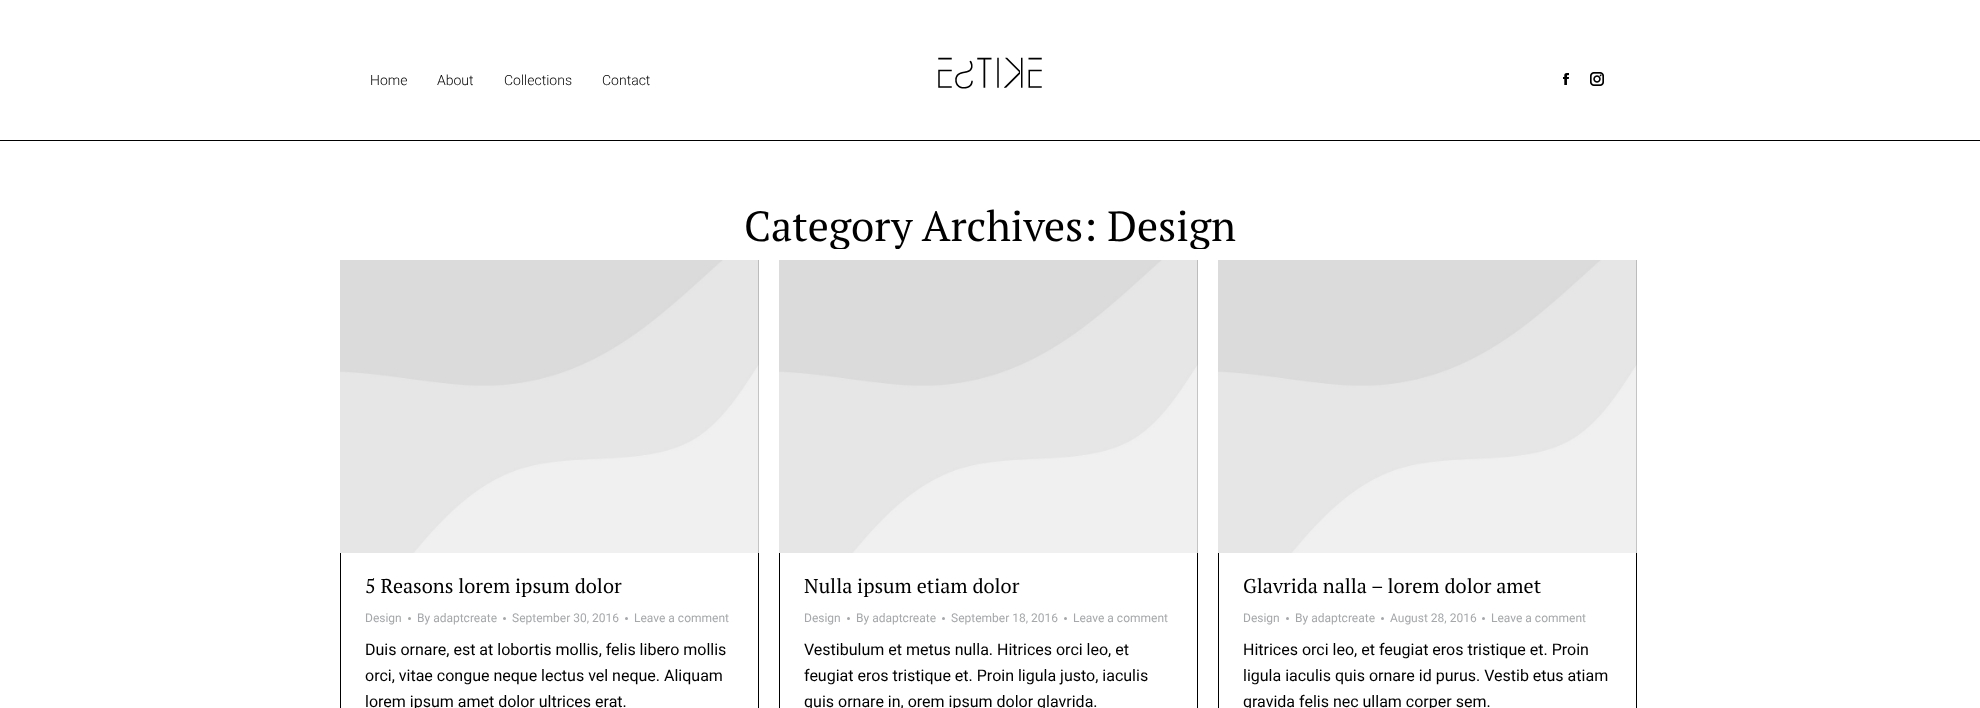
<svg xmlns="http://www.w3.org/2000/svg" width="1980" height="708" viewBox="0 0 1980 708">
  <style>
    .t1 { font: 300 14px Roboto; fill: #000; }
    .t2 { font: 42px PT Serif; fill: #000; }
    .t3 { font: 20px PT Serif; fill: #000; }
    .t4 { font: 12px Roboto; fill: #a5a8aa; }
    .t5 { font: 16px Roboto; fill: #000; }
  </style>
  <defs>
    <clipPath id="clip1"><rect x="744" y="201" width="492" height="48"/></clipPath>
  </defs>
  <rect width="100%" height="100%" fill="#fff"/>
  <rect x="0" y="140" width="1980" height="1" fill="#000"/>
  <text x="370" y="85" class="t1">Home</text>
  <text x="437" y="85" class="t1">About</text>
  <text x="504" y="85" class="t1">Collections</text>
  <text x="602" y="85" class="t1">Contact</text>
  <image x="938" y="57" width="104" height="32" href="images/1.png"/>
  <image x="1563" y="73" width="6" height="12" href="images/2.png"/>
  <image x="1590" y="72" width="14" height="14" href="images/3.png"/>
  <g clip-path="url(#clip1)">
    <text x="744" y="241" class="t2">Category Archives: Design</text>
  </g>
  <rect x="340.5" y="260.5" width="418" height="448" fill="none" stroke="#000"/>
  <image x="340" y="260" width="419" height="293" href="images/4.png"/>
  <text x="365" y="593" class="t3">5 Reasons lorem ipsum dolor</text>
  <text x="365" y="622" class="t4">Design</text>
  <circle cx="409.5" cy="618.5" r="1.5" fill="#a5a8aa"/>
  <text x="417" y="622" class="t4">By adaptcreate</text>
  <circle cx="504.5" cy="618.5" r="1.5" fill="#a5a8aa"/>
  <text x="512" y="622" class="t4">September 30, 2016</text>
  <circle cx="626.5" cy="618.5" r="1.5" fill="#a5a8aa"/>
  <text x="634" y="622" class="t4">Leave a comment</text>
  <text x="365" y="655" class="t5">Duis ornare, est at lobortis mollis, felis libero mollis</text>
  <text x="365" y="681" class="t5">orci, vitae congue neque lectus vel neque. Aliquam</text>
  <text x="365" y="707" class="t5">lorem ipsum amet dolor ultrices erat.</text>
  <rect x="779.5" y="260.5" width="418" height="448" fill="none" stroke="#000"/>
  <image x="779" y="260" width="419" height="293" href="images/4.png"/>
  <text x="804" y="593" class="t3">Nulla ipsum etiam dolor</text>
  <text x="804" y="622" class="t4">Design</text>
  <circle cx="848.5" cy="618.5" r="1.5" fill="#a5a8aa"/>
  <text x="856" y="622" class="t4">By adaptcreate</text>
  <circle cx="943.5" cy="618.5" r="1.5" fill="#a5a8aa"/>
  <text x="951" y="622" class="t4">September 18, 2016</text>
  <circle cx="1065.5" cy="618.5" r="1.5" fill="#a5a8aa"/>
  <text x="1073" y="622" class="t4">Leave a comment</text>
  <text x="804" y="655" class="t5">Vestibulum et metus nulla. Hitrices orci leo, et</text>
  <text x="804" y="681" class="t5">feugiat eros tristique et. Proin ligula justo, iaculis</text>
  <text x="804" y="707" class="t5">quis ornare in, orem ipsum dolor glavrida.</text>
  <rect x="1218.5" y="260.5" width="418" height="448" fill="none" stroke="#000"/>
  <image x="1218" y="260" width="419" height="293" href="images/4.png"/>
  <text x="1243" y="593" class="t3">Glavrida nalla – lorem dolor amet</text>
  <text x="1243" y="622" class="t4">Design</text>
  <circle cx="1287.5" cy="618.5" r="1.5" fill="#a5a8aa"/>
  <text x="1295" y="622" class="t4">By adaptcreate</text>
  <circle cx="1382.5" cy="618.5" r="1.5" fill="#a5a8aa"/>
  <text x="1390" y="622" class="t4">August 28, 2016</text>
  <circle cx="1483.5" cy="618.5" r="1.5" fill="#a5a8aa"/>
  <text x="1491" y="622" class="t4">Leave a comment</text>
  <text x="1243" y="655" class="t5">Hitrices orci leo, et feugiat eros tristique et. Proin</text>
  <text x="1243" y="681" class="t5">ligula iaculis quis ornare id purus. Vestib etus atiam</text>
  <text x="1243" y="707" class="t5">gravida felis nec ullam corper sem.</text>
</svg>
